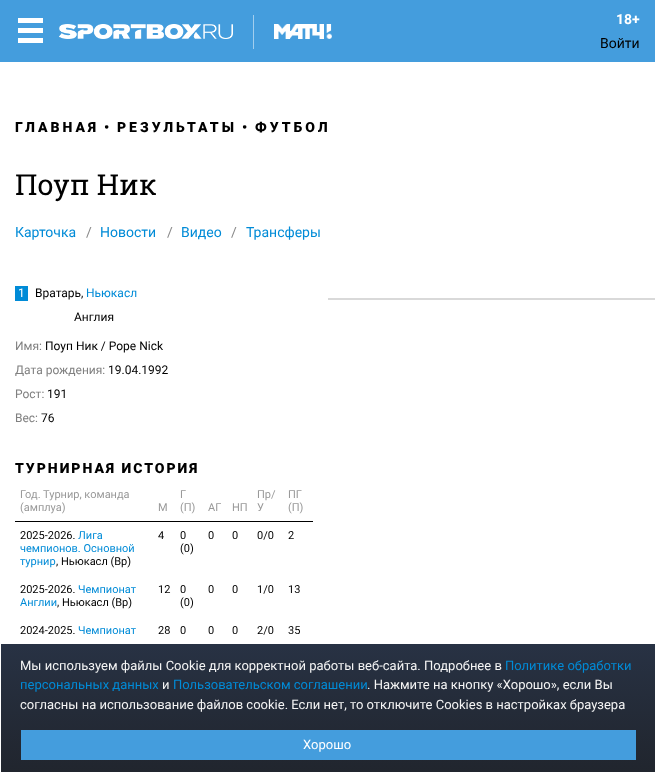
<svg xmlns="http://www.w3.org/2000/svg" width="655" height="772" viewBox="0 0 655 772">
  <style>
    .t1 { font: bold 14px Roboto; fill: #fff; }
    .t2 { font: 14px Roboto; fill: #000; }
    .t3 { font: 900 14px Roboto; letter-spacing: 3px; fill: #000; }
    .t4 { font: 900 14px Roboto; fill: #000; }
    .t5 { font: 29px Roboto Slab; fill: #000; }
    .t6 { font: 14px Roboto; fill: #008bd7; }
    .t7 { font: 14px Roboto; fill: #898989; }
    .t8 { font: 12px Roboto; fill: #fff; }
    .t9 { font: 12px Roboto; fill: #000; }
    .t10 { font: 12px Roboto; fill: #008bd7; }
    .t11 { font: 12px Roboto; fill: #808080; }
    .t12 { font: 900 14px Roboto; letter-spacing: 2px; fill: #000; }
    .t13 { font: 11px Roboto; fill: #999; }
    .t14 { font: 11px Roboto; fill: #000; }
    .t15 { font: 11px Roboto; fill: #008bd7; }
    .t16 { font: 13px Roboto; fill: #f5f5f5; }
    .t17 { font: 13px Roboto; fill: #008bd7; }
    .t18 { font: 13px Roboto; fill: #fff; }
  </style>
  <defs>
    <linearGradient id="g1" gradientUnits="userSpaceOnUse" x1="328" y1="644" x2="328" y2="772"><stop offset="0" stop-color="#283244"/><stop offset="1" stop-color="#151a23" stop-opacity="0.95"/></linearGradient>
  </defs>
  <rect width="100%" height="100%" fill="#449ddd"/>
  <rect x="18" y="18" width="25" height="5" fill="#fff"/>
  <rect x="18" y="38" width="25" height="5" fill="#fff"/>
  <rect x="18" y="28" width="25" height="5" fill="#fff"/>
  <image x="59" y="24" width="174" height="15" href="images/1.png"/>
  <rect x="253" y="15" width="1" height="34" fill="#a2ceee"/>
  <image x="274" y="24" width="58" height="15" href="images/2.png"/>
  <text x="616" y="24" class="t1">18+</text>
  <text x="600" y="48" class="t2">Войти</text>
  <rect x="0" y="62" width="655" height="710" fill="#fff"/>
  <text x="15" y="132" class="t3">ГЛАВНАЯ</text>
  <text x="104" y="132" class="t4">•</text>
  <text x="117" y="132" class="t3">РЕЗУЛЬТАТЫ</text>
  <text x="242" y="132" class="t4">•</text>
  <text x="255" y="132" class="t3">ФУТБОЛ</text>
  <text x="15" y="195" class="t5">Поуп Ник</text>
  <text x="15" y="237" class="t6">Карточка</text>
  <text x="86" y="237" class="t7">/</text>
  <text x="100" y="237" class="t6">Новости</text>
  <text x="167" y="237" class="t7">/</text>
  <text x="181" y="237" class="t6">Видео</text>
  <text x="231" y="237" class="t7">/</text>
  <text x="246" y="237" class="t6">Трансферы</text>
  <rect x="15" y="286" width="13" height="15" fill="#008bd7"/>
  <text x="18" y="297" class="t8">1</text>
  <text x="35" y="297" class="t9">Вратарь,</text>
  <text x="86" y="297" class="t10">Ньюкасл</text>
  <text x="74" y="321" class="t9">Англия</text>
  <text x="15" y="350" class="t11">Имя:</text>
  <text x="45" y="350" class="t9">Поуп Ник / Pope Nick</text>
  <text x="15" y="374" class="t11">Дата рождения:</text>
  <text x="108" y="374" class="t9">19.04.1992</text>
  <text x="15" y="398" class="t11">Рост:</text>
  <text x="47" y="398" class="t9">191</text>
  <text x="15" y="422" class="t11">Вес:</text>
  <text x="41" y="422" class="t9">76</text>
  <text x="15" y="473" class="t12">ТУРНИРНАЯ ИСТОРИЯ</text>
  <text x="20" y="498" class="t13">Год. Турнир, команда</text>
  <text x="20" y="511" class="t13">(амплуа)</text>
  <text x="158" y="511" class="t13">М</text>
  <text x="180" y="498" class="t13">Г</text>
  <text x="180" y="511" class="t13">(П)</text>
  <text x="208" y="511" class="t13">АГ</text>
  <text x="232" y="511" class="t13">НП</text>
  <text x="257" y="498" class="t13">Пр/</text>
  <text x="257" y="511" class="t13">У</text>
  <rect x="15" y="521" width="298" height="1" fill="#000"/>
  <text x="288" y="498" class="t13">ПГ</text>
  <text x="288" y="511" class="t13">(П)</text>
  <text x="20" y="539" class="t14">2025-2026.</text>
  <text x="78" y="539" class="t15">Лига</text>
  <text x="20" y="552" class="t15">чемпионов. Основной</text>
  <text x="20" y="565" class="t15">турнир</text>
  <text x="56" y="565" class="t14">, Ньюкасл (Вр)</text>
  <text x="158" y="539" class="t14">4</text>
  <text x="180" y="539" class="t14">0</text>
  <text x="180" y="552" class="t14">(0)</text>
  <text x="208" y="539" class="t14">0</text>
  <text x="232" y="539" class="t14">0</text>
  <text x="257" y="539" class="t14">0/0</text>
  <text x="288" y="539" class="t14">2</text>
  <text x="20" y="593" class="t14">2025-2026.</text>
  <text x="78" y="593" class="t15">Чемпионат</text>
  <text x="20" y="606" class="t15">Англии</text>
  <text x="57" y="606" class="t14">, Ньюкасл (Вр)</text>
  <text x="158" y="593" class="t14">12</text>
  <text x="180" y="593" class="t14">0</text>
  <text x="180" y="606" class="t14">(0)</text>
  <text x="208" y="593" class="t14">0</text>
  <text x="232" y="593" class="t14">0</text>
  <text x="257" y="593" class="t14">1/0</text>
  <text x="288" y="593" class="t14">13</text>
  <text x="20" y="634" class="t14">2024-2025.</text>
  <text x="78" y="634" class="t15">Чемпионат</text>
  <text x="158" y="634" class="t14">28</text>
  <text x="180" y="634" class="t14">0</text>
  <text x="208" y="634" class="t14">0</text>
  <text x="232" y="634" class="t14">0</text>
  <text x="257" y="634" class="t14">2/0</text>
  <text x="288" y="634" class="t14">35</text>
  <rect x="328" y="298" width="327" height="2" fill="#d9d9d9"/>
  <rect x="1" y="644" width="654" height="128" fill="url(#g1)"/>
  <text x="20" y="670" class="t16">Мы используем файлы Сookie для корректной работы веб-сайта. Подробнее в</text>
  <text x="505" y="670" class="t17">Политике обработки</text>
  <text x="20" y="689" class="t17">персональных данных</text>
  <text x="162" y="689" class="t16">и</text>
  <text x="173" y="689" class="t17">Пользовательском соглашении</text>
  <text x="367" y="689" class="t16">. Нажмите на кнопку «Хорошо», если Вы</text>
  <text x="20" y="709" class="t16">согласны на использование файлов cookie. Если нет, то отключите Cookies в настройках браузера</text>
  <rect x="21" y="730" width="615" height="30" fill="#449ddd"/>
  <text x="303" y="749" class="t18">Хорошо</text>
</svg>
